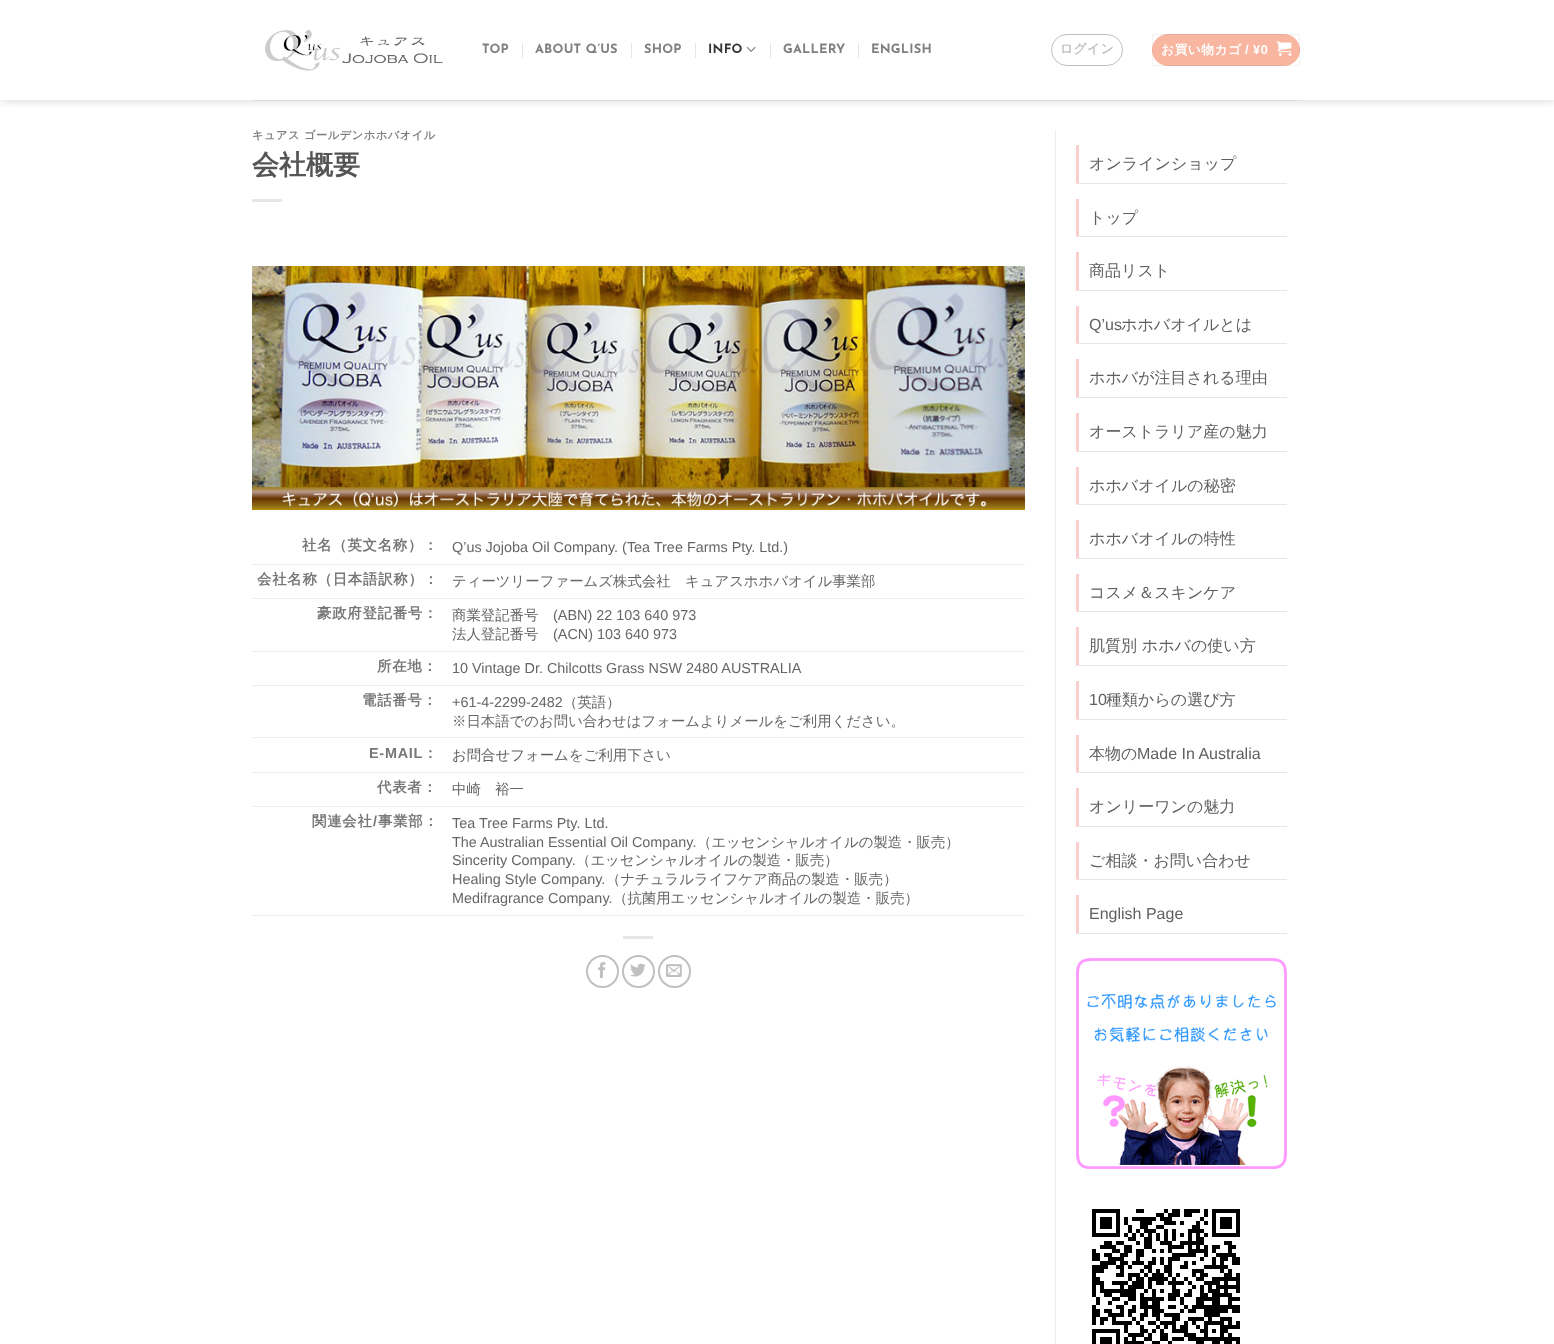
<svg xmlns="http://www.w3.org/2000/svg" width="1554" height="1344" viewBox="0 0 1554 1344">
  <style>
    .t1 { font: bold 12.75px Josefin Sans; letter-spacing: 0.25px; fill: #808080; }
    .t2 { font: bold 12.75px Josefin Sans; letter-spacing: 0.25px; fill: #353535; }
    .t3 { font: bold 12.75px WenQuanYi Zen Hei; letter-spacing: 0.5px; fill: #c0c0c0; }
    .t4 { font: bold 12.75px WenQuanYi Zen Hei; letter-spacing: 0.5px; fill: #fff; }
    .t5 { font: bold 12.75px Liberation Sans; letter-spacing: 0.5px; fill: #fff; }
    .t6 { font: bold 11.25px WenQuanYi Zen Hei; letter-spacing: 0.5px; fill: #808080; }
    .t7 { font: bold 27px WenQuanYi Zen Hei; fill: #555; }
    .t8 { font: bold 14.4px WenQuanYi Zen Hei; letter-spacing: 0.75px; fill: #777; }
    .t9 { font: 14.4px Liberation Sans; fill: #666; }
    .t10 { font: 500 14.4px WenQuanYi Zen Hei; fill: #666; }
    .t11 { font: bold 14.4px Liberation Sans; letter-spacing: 0.75px; fill: #777; }
    .t12 { font: 500 14.4px WenQuanYi Zen Hei; fill: #606060; }
    .t13 { font: 500 16px WenQuanYi Zen Hei; fill: #606060; }
    .t14 { font: 16px Liberation Sans; fill: #606060; }
  </style>
  <defs>
    <clipPath id="clip1"><rect x="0" y="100" width="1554" height="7"/></clipPath>
  </defs>
  <rect width="100%" height="100%" fill="#fff"/>
  <g clip-path="url(#clip1)">
    <rect x="1" y="1" width="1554" height="100" fill="#00000026" filter="blur(5px)"/>
  </g>
  <image x="265" y="29" width="178" height="42" href="images/1.png"/>
  <text x="482" y="53" class="t1">TOP</text>
  <rect x="522" y="43" width="1" height="15" fill="#e6e6e6"/>
  <text x="535" y="53" class="t1">ABOUT Q’US</text>
  <rect x="631" y="43" width="1" height="15" fill="#e6e6e6"/>
  <text x="644" y="53" class="t1">SHOP</text>
  <rect x="695" y="43" width="1" height="15" fill="#e6e6e6"/>
  <text x="708" y="53" class="t2">INFO</text>
  <image x="746" y="46" width="10" height="6" href="images/2.png"/>
  <rect x="770" y="43" width="1" height="15" fill="#e6e6e6"/>
  <text x="783" y="53" class="t1">GALLERY</text>
  <rect x="858" y="43" width="1" height="15" fill="#e6e6e6"/>
  <text x="871" y="53" class="t1">ENGLISH</text>
  <rect x="1051.5" y="34.5" width="71" height="31" rx="15.5" fill="none" stroke="#c0c0c0"/>
  <text x="1060" y="53" class="t3">ログイン</text>
  <rect x="1152" y="34" width="148" height="32" rx="16" fill="#f8b59f"/>
  <rect x="1152.5" y="34.5" width="147" height="31" fill="none" stroke="#0000000d"/>
  <text x="1161" y="54" class="t4">お買い物カゴ</text>
  <text x="1245" y="54" class="t5">/ ¥0</text>
  <image x="1276" y="41" width="16" height="15" href="images/3.png"/>
  <rect x="252" y="100" width="1050" height="1" fill="#dfdfdf"/>
  <text x="252" y="139" class="t6">キュアス ゴールデンホホバオイル</text>
  <text x="252" y="174" class="t7">会社概要</text>
  <rect x="252" y="199" width="30" height="3" fill="#e6e6e6"/>
  <image x="252" y="266" width="773" height="244" href="images/4.png"/>
  <rect x="252" y="564" width="773" height="1" fill="#ececec"/>
  <text x="302" y="550" class="t8">社名（英文名称）：</text>
  <text x="452" y="552" class="t9">Q’us Jojoba Oil Company. (Tea Tree Farms Pty. Ltd.)</text>
  <rect x="252" y="598" width="773" height="1" fill="#ececec"/>
  <text x="257" y="584" class="t8">会社名称（日本語訳称）：</text>
  <text x="452" y="586" class="t10">ティーツリーファームズ株式会社　キュアスホホバオイル事業部</text>
  <rect x="252" y="651" width="773" height="1" fill="#ececec"/>
  <text x="317" y="618" class="t8">豪政府登記番号：</text>
  <text x="452" y="620" class="t10">商業登記番号</text>
  <text x="553" y="620" class="t9">(ABN) 22 103 640 973</text>
  <text x="452" y="639" class="t10">法人登記番号</text>
  <text x="553" y="639" class="t9">(ACN) 103 640 973</text>
  <rect x="252" y="685" width="773" height="1" fill="#ececec"/>
  <text x="377" y="671" class="t8">所在地：</text>
  <text x="452" y="673" class="t9">10 Vintage Dr. Chilcotts Grass NSW 2480 AUSTRALIA</text>
  <rect x="252" y="737" width="773" height="1" fill="#ececec"/>
  <text x="362" y="705" class="t8">電話番号：</text>
  <text x="452" y="707" class="t9">+61-4-2299-2482</text>
  <text x="563" y="707" class="t10">（英語）</text>
  <text x="452" y="726" class="t10">※日本語でのお問い合わせはフォームよりメールをご利用ください。</text>
  <rect x="252" y="772" width="773" height="1" fill="#ececec"/>
  <text x="369" y="758" class="t11">E-MAIL</text>
  <text x="423" y="758" class="t8">：</text>
  <text x="452" y="760" class="t12">お問合せフォーム</text>
  <text x="569" y="760" class="t10">をご利用下さい</text>
  <rect x="252" y="806" width="773" height="1" fill="#ececec"/>
  <text x="377" y="792" class="t8">代表者：</text>
  <text x="452" y="794" class="t10">中崎　裕一</text>
  <rect x="252" y="915" width="773" height="1" fill="#ececec"/>
  <text x="312" y="826" class="t8">関連会社</text>
  <text x="373" y="826" class="t11">/</text>
  <text x="378" y="826" class="t8">事業部：</text>
  <text x="452" y="828" class="t9">Tea Tree Farms Pty. Ltd.</text>
  <text x="452" y="847" class="t9">The Australian Essential Oil Company.</text>
  <text x="697" y="847" class="t10">（エッセンシャルオイルの製造・販売）</text>
  <text x="452" y="865" class="t9">Sincerity Company.</text>
  <text x="576" y="865" class="t10">（エッセンシャルオイルの製造・販売）</text>
  <text x="452" y="884" class="t9">Healing Style Company.</text>
  <text x="606" y="884" class="t10">（ナチュラルライフケア商品の製造・販売）</text>
  <text x="452" y="903" class="t9">Medifragrance Company.</text>
  <text x="613" y="903" class="t10">（抗菌用エッセンシャルオイルの製造・販売）</text>
  <rect x="623" y="936" width="30" height="3" fill="#e6e6e6"/>
  <circle cx="602.5" cy="971.5" r="15.5" fill="none" stroke="#c0c0c0" stroke-width="2"/>
  <image x="598" y="962" width="8" height="16" href="images/5.png"/>
  <circle cx="638.5" cy="971.5" r="15.5" fill="none" stroke="#c0c0c0" stroke-width="2"/>
  <image x="630" y="963" width="16" height="14" href="images/6.png"/>
  <circle cx="674.5" cy="971.5" r="15.5" fill="none" stroke="#c0c0c0" stroke-width="2"/>
  <image x="666" y="964" width="16" height="13" href="images/7.png"/>
  <rect x="1055" y="130" width="1" height="1214" fill="#ececec"/>
  <path d="M1287 184H1076L1079 183H1287Z" fill="#e6e6e6"/>
  <path d="M1076 184V145H1079V183Z" fill="#fccfcf"/>
  <text x="1089" y="169" class="t13">オンラインショップ</text>
  <path d="M1287 237H1076L1079 236H1287Z" fill="#e6e6e6"/>
  <path d="M1076 237V199H1079V236Z" fill="#fccfcf"/>
  <text x="1089" y="223" class="t13">トップ</text>
  <path d="M1287 291H1076L1079 290H1287Z" fill="#e6e6e6"/>
  <path d="M1076 291V252H1079V290Z" fill="#fccfcf"/>
  <text x="1089" y="276" class="t13">商品リスト</text>
  <path d="M1287 344H1076L1079 343H1287Z" fill="#e6e6e6"/>
  <path d="M1076 344V306H1079V343Z" fill="#fccfcf"/>
  <text x="1089" y="330" class="t14">Q’us</text>
  <text x="1121" y="330" class="t13">ホホバオイルとは</text>
  <path d="M1287 398H1076L1079 397H1287Z" fill="#e6e6e6"/>
  <path d="M1076 398V359H1079V397Z" fill="#fccfcf"/>
  <text x="1089" y="383" class="t13">ホホバが注目される理由</text>
  <path d="M1287 452H1076L1079 451H1287Z" fill="#e6e6e6"/>
  <path d="M1076 452V413H1079V451Z" fill="#fccfcf"/>
  <text x="1089" y="437" class="t13">オーストラリア産の魅力</text>
  <path d="M1287 505H1076L1079 504H1287Z" fill="#e6e6e6"/>
  <path d="M1076 505V467H1079V504Z" fill="#fccfcf"/>
  <text x="1089" y="491" class="t13">ホホバオイルの秘密</text>
  <path d="M1287 559H1076L1079 558H1287Z" fill="#e6e6e6"/>
  <path d="M1076 559V520H1079V558Z" fill="#fccfcf"/>
  <text x="1089" y="544" class="t13">ホホバオイルの特性</text>
  <path d="M1287 612H1076L1079 611H1287Z" fill="#e6e6e6"/>
  <path d="M1076 612V574H1079V611Z" fill="#fccfcf"/>
  <text x="1089" y="598" class="t13">コスメ＆スキンケア</text>
  <path d="M1287 666H1076L1079 665H1287Z" fill="#e6e6e6"/>
  <path d="M1076 666V627H1079V665Z" fill="#fccfcf"/>
  <text x="1089" y="651" class="t13">肌質別 ホホバの使い方</text>
  <path d="M1287 720H1076L1079 719H1287Z" fill="#e6e6e6"/>
  <path d="M1076 720V681H1079V719Z" fill="#fccfcf"/>
  <text x="1089" y="705" class="t14">10</text>
  <text x="1106" y="705" class="t13">種類からの選び方</text>
  <path d="M1287 773H1076L1079 772H1287Z" fill="#e6e6e6"/>
  <path d="M1076 773V735H1079V772Z" fill="#fccfcf"/>
  <text x="1089" y="759" class="t13">本物の</text>
  <text x="1137" y="759" class="t14">Made In Australia</text>
  <path d="M1287 827H1076L1079 826H1287Z" fill="#e6e6e6"/>
  <path d="M1076 827V788H1079V826Z" fill="#fccfcf"/>
  <text x="1089" y="812" class="t13">オンリーワンの魅力</text>
  <path d="M1287 880H1076L1079 879H1287Z" fill="#e6e6e6"/>
  <path d="M1076 880V842H1079V879Z" fill="#fccfcf"/>
  <text x="1089" y="866" class="t13">ご相談・お問い合わせ</text>
  <path d="M1287 934H1076L1079 933H1287Z" fill="#e6e6e6"/>
  <path d="M1076 934V895H1079V933Z" fill="#fccfcf"/>
  <text x="1089" y="919" class="t14">English Page</text>
  <image x="1076" y="958" width="211" height="211" href="images/8.png"/>
  <image x="1092" y="1209" width="148" height="135" href="images/9.png"/>
</svg>
